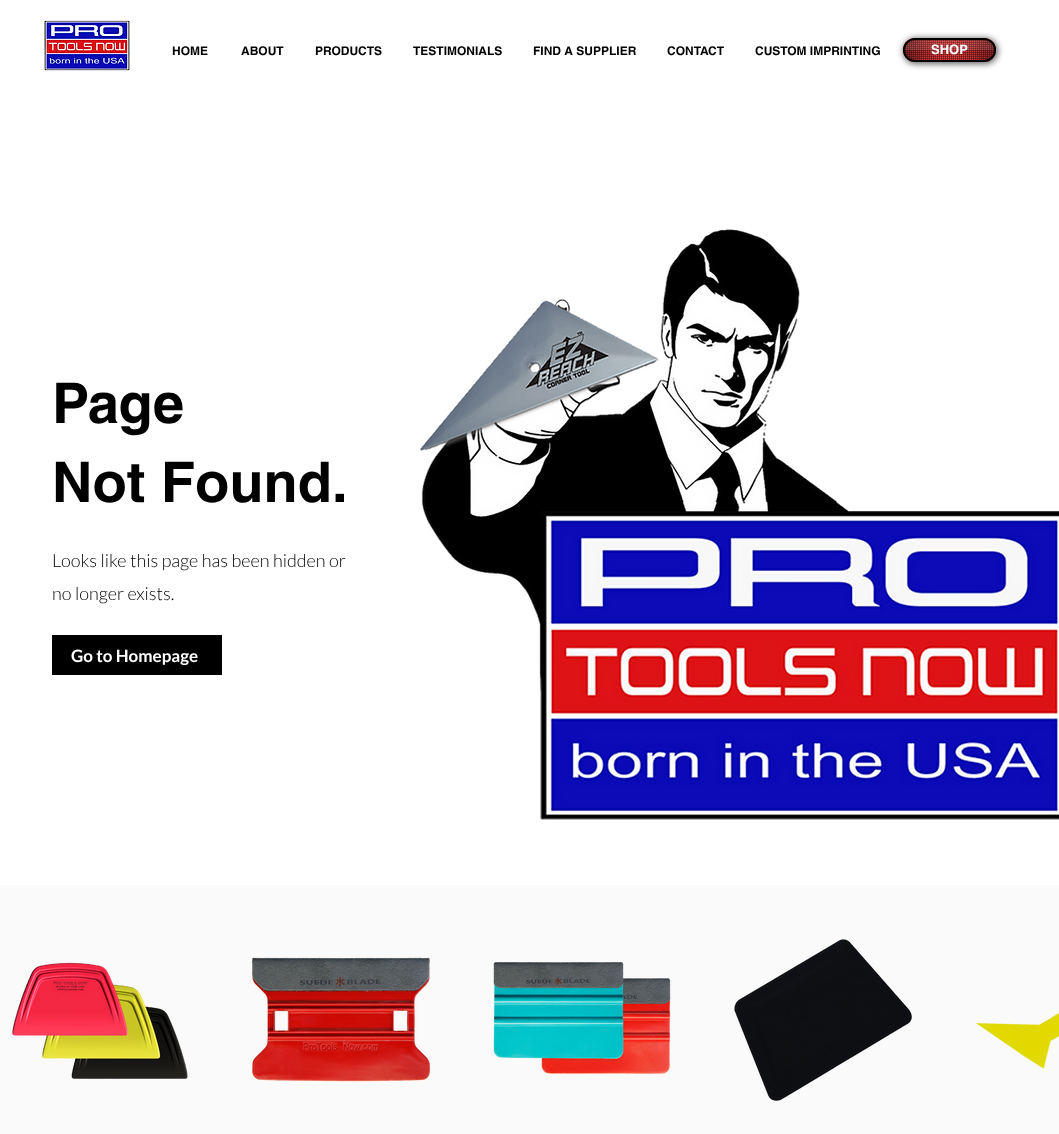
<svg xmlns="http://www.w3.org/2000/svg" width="1059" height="1134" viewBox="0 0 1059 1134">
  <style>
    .t1 { font: bold 12px helvetica; fill: #000; }
    .t2 { font: bold 13px helvetica; fill: #fff; }
    .t3 { font: bold 56px helvetica; fill: #000; }
    .t4 { font: 300 18px Lato; fill: #000; }
    .t5 { font: bold 17px Lato; fill: #fff; }
  </style>
  <rect width="100%" height="100%" fill="#fff"/>
  <image x="44" y="20" width="86" height="51" href="images/1.png"/>
  <text x="172" y="55" class="t1">HOME</text>
  <text x="241" y="55" class="t1">ABOUT</text>
  <text x="315" y="55" class="t1">PRODUCTS</text>
  <text x="413" y="55" class="t1">TESTIMONIALS</text>
  <text x="533" y="55" class="t1">FIND A SUPPLIER</text>
  <text x="667" y="55" class="t1">CONTACT</text>
  <text x="755" y="55" class="t1">CUSTOM IMPRINTING</text>
  <rect x="903" y="38" width="95" height="26" rx="13" fill="#00000099" filter="blur(3px)"/>
  <rect x="903" y="38" width="93" height="24" rx="12" fill="#ff4040"/>
  <image x="903" y="38" width="93" height="24" href="images/2.png"/>
  <rect x="904" y="39" width="91" height="22" rx="11" fill="none" stroke="#000" stroke-width="2"/>
  <image x="905" y="40" width="50" height="20" href="images/3.png"/>
  <image x="944" y="40" width="50" height="20" href="images/5.png"/>
  <text x="931" y="54" class="t2">SHOP</text>
  <image x="905" y="40" width="89" height="10" href="images/4.png"/>
  <text x="52" y="423" class="t3">Page</text>
  <text x="52" y="502" class="t3">Not Found.</text>
  <image x="419" y="229" width="640" height="591" href="images/6.png"/>
  <text x="52" y="567" class="t4">Looks like this page has been hidden or</text>
  <text x="52" y="600" class="t4">no longer exists.</text>
  <rect x="52" y="635" width="170" height="40" fill="#000"/>
  <text x="71" y="662" class="t5">Go to Homepage</text>
  <rect x="0" y="885" width="1059" height="249" fill="#fafafa"/>
  <image x="12" y="962" width="176" height="117" href="images/7.png"/>
  <image x="251" y="957" width="180" height="125" href="images/8.png"/>
  <image x="493" y="962" width="178" height="112" href="images/9.png"/>
  <image x="734" y="939" width="178" height="162" href="images/10.png"/>
  <image x="976" y="1013" width="83" height="56" href="images/11.png"/>
</svg>
